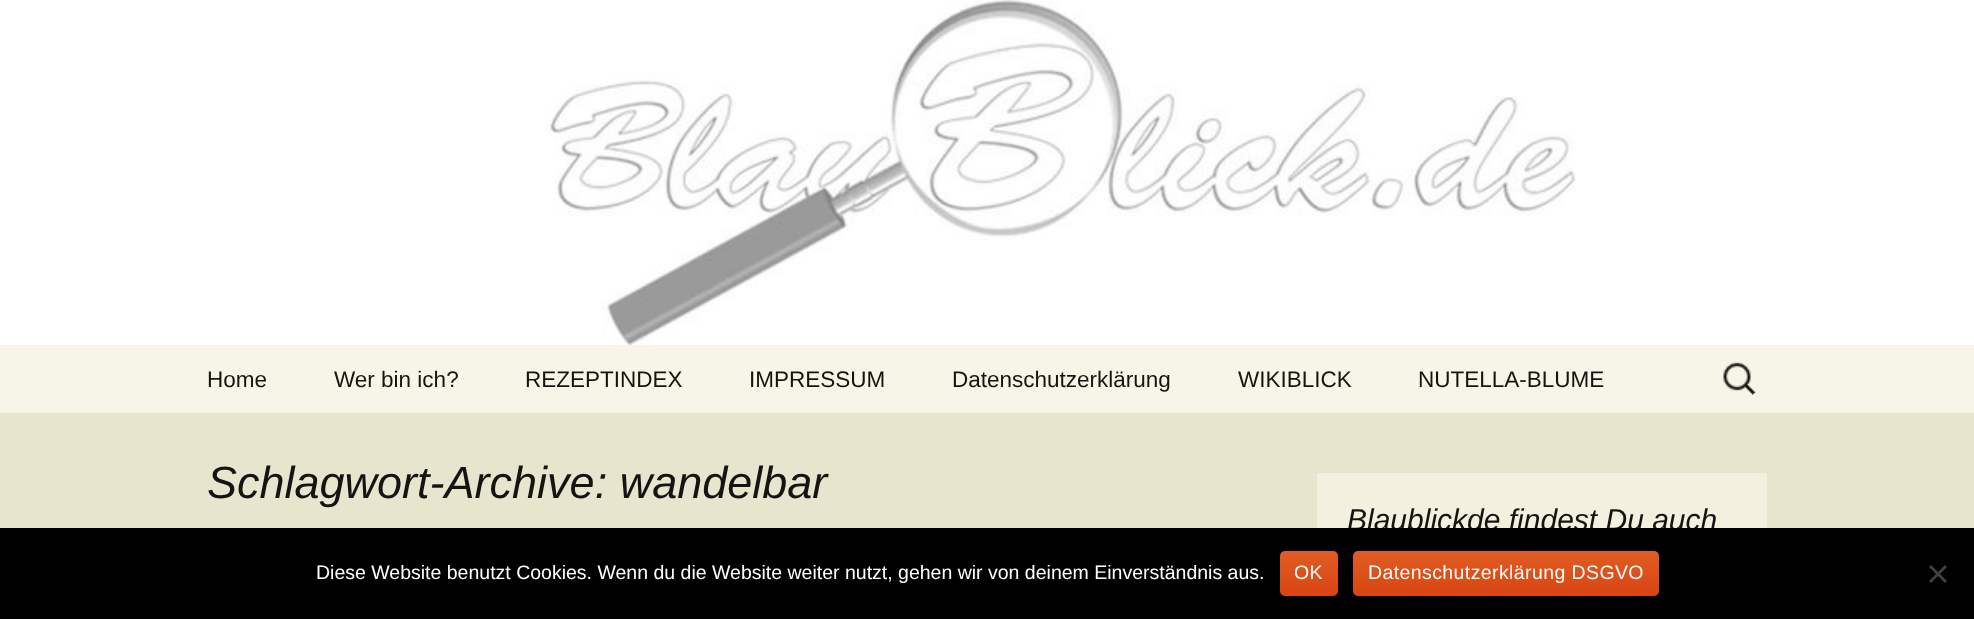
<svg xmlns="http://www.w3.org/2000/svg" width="1974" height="619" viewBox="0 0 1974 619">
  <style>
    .t1 { font: 22.5px Liberation Sans; fill: #141412; }
    .t2 { font: italic 45px Liberation Sans; fill: #141412; }
    .t3 { font: italic 30px Liberation Sans; fill: #141412; }
    .t4 { font: 19.5px Liberation Sans; fill: #fff; }
    .t5 { font: 19.5px Liberation Sans; letter-spacing: 0.4px; fill: #fff; }
  </style>
  <defs>
    <linearGradient id="g1" gradientUnits="userSpaceOnUse" x1="1309" y1="551" x2="1309" y2="596"><stop offset="0" stop-color="#e05d22"/><stop offset="1" stop-color="#d94412"/></linearGradient>
    <linearGradient id="g2" gradientUnits="userSpaceOnUse" x1="1506" y1="551" x2="1506" y2="596"><stop offset="0" stop-color="#e05d22"/><stop offset="1" stop-color="#d94412"/></linearGradient>
  </defs>
  <rect width="100%" height="100%" fill="#fff"/>
  <image x="545" y="0" width="1031" height="345" href="images/1.png"/>
  <rect x="0" y="345" width="1974" height="68" fill="#f7f5e7"/>
  <text x="207" y="387" class="t1">Home</text>
  <text x="334" y="387" class="t1">Wer bin ich?</text>
  <text x="525" y="387" class="t1">REZEPTINDEX</text>
  <text x="749" y="387" class="t1">IMPRESSUM</text>
  <text x="952" y="387" class="t1">Datenschutzerklärung</text>
  <text x="1238" y="387" class="t1">WIKIBLICK</text>
  <text x="1418" y="387" class="t1">NUTELLA-BLUME</text>
  <image x="1723" y="362" width="33" height="33" href="images/2.png"/>
  <rect x="0" y="413" width="1974" height="115" fill="#e8e5ce"/>
  <rect x="1317" y="473" width="450" height="55" fill="#f3f0e0"/>
  <text x="207" y="498" class="t2">Schlagwort-Archive: wandelbar</text>
  <text x="1347" y="530" class="t3">Blaublickde findest Du auch</text>
  <rect x="0" y="528" width="1974" height="91" fill="#000"/>
  <text x="316" y="579" class="t4">Diese Website benutzt Cookies. Wenn du die Website weiter nutzt, gehen wir von deinem Einverständnis aus.</text>
  <rect x="1280" y="551" width="58" height="45" rx="5" fill="url(#g1)"/>
  <text x="1294" y="579" class="t5">OK</text>
  <rect x="1353" y="551" width="306" height="45" rx="5" fill="url(#g2)"/>
  <text x="1368" y="579" class="t5">Datenschutzerklärung DSGVO</text>
  <path d="M1945 565L1947 567L1931 583L1929 581Z" fill="#404040"/>
  <path d="M1929 567L1931 565L1947 581L1945 583Z" fill="#404040"/>
</svg>
